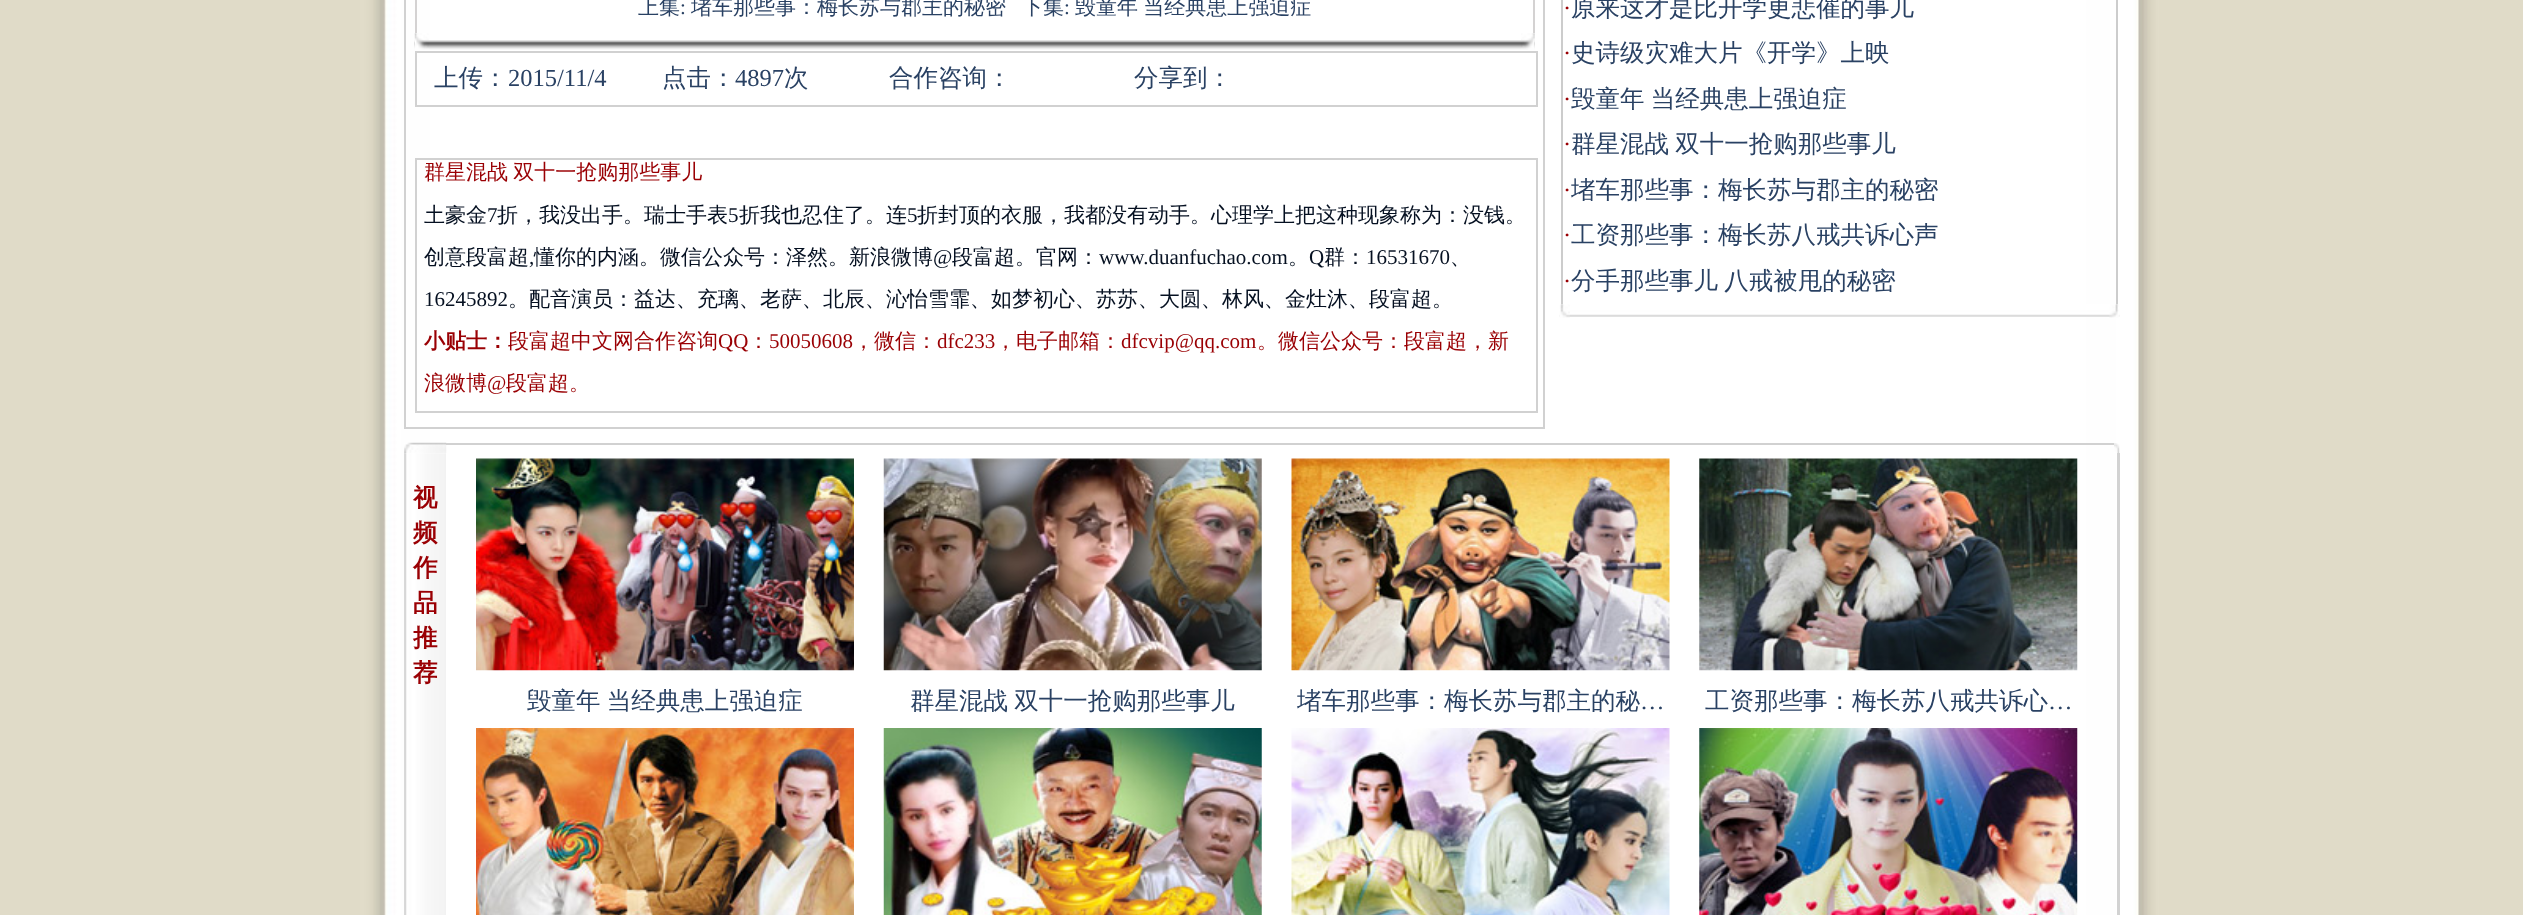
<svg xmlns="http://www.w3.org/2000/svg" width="2523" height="915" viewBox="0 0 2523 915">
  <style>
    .t1 { font: 500 21px WenQuanYi Zen Hei; fill: #294163; }
    .t2 { font: 21px Liberation Serif; fill: #294163; }
    .t3 { font: 500 24.5px WenQuanYi Zen Hei; fill: #294163; }
    .t4 { font: 24.5px Liberation Serif; fill: #294163; }
    .t5 { font: 500 21px WenQuanYi Zen Hei; fill: #9a0004; }
    .t6 { font: 500 21px WenQuanYi Zen Hei; fill: #051021; }
    .t7 { font: 21px Liberation Serif; fill: #051021; }
    .t8 { font: bold 21px WenQuanYi Zen Hei; fill: #9a0004; }
    .t9 { font: 21px Liberation Serif; fill: #9a0004; }
    .t10 { font: 24.5px Liberation Serif; fill: #9a0004; }
    .t11 { font: bold 24.5px WenQuanYi Zen Hei; fill: #9a0004; }
  </style>
  <rect width="100%" height="100%" fill="#fff"/>
  <image x="0" y="0" width="2523" height="915" href="images/1.png"/>
  <rect x="405" y="-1" width="1139" height="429" fill="none" stroke="#d1d1d1" stroke-width="2"/>
  <rect x="1533" y="0" width="2" height="33" fill="#d4d2d2"/>
  <rect x="415" y="0" width="2" height="33" fill="#d4d2d2"/>
  <text x="638" y="14" class="t1">上集</text>
  <text x="680" y="14" class="t2">:</text>
  <text x="691" y="14" class="t1">堵车那些事：梅长苏与郡主的秘密</text>
  <text x="1022" y="14" class="t1">下集</text>
  <text x="1064" y="14" class="t2">:</text>
  <text x="1075" y="14" word-spacing="-1" class="t1">毁童年 当经典患上强迫症</text>
  <image x="414" y="40" width="1121" height="10" href="images/2.png"/>
  <image x="414" y="33" width="15" height="17" href="images/3.png"/>
  <image x="1521" y="33" width="14" height="17" href="images/4.png"/>
  <rect x="416" y="52" width="1121" height="54" fill="none" stroke="#d1d1d1" stroke-width="2"/>
  <text x="434" y="86" class="t3">上传：</text>
  <text x="508" y="86" class="t4">2015/11/4</text>
  <text x="662" y="86" class="t3">点击：</text>
  <text x="735" y="86" class="t4">4897</text>
  <text x="784" y="86" class="t3">次</text>
  <text x="889" y="86" class="t3">合作咨询：</text>
  <text x="1134" y="86" class="t3">分享到：</text>
  <rect x="416" y="159" width="1121" height="253" fill="none" stroke="#d1d1d1" stroke-width="2"/>
  <text x="424" y="179" word-spacing="-1" class="t5">群星混战 双十一抢购那些事儿</text>
  <text x="424" y="222" class="t6">土豪金</text>
  <text x="487" y="222" class="t7">7</text>
  <text x="497" y="222" class="t6">折，我没出手。瑞士手表</text>
  <text x="728" y="222" class="t7">5</text>
  <text x="739" y="222" class="t6">折我也忍住了。连</text>
  <text x="907" y="222" class="t7">5</text>
  <text x="917" y="222" class="t6">折封顶的衣服，我都没有动手。心理学上把这种现象称为：没钱。</text>
  <text x="424" y="264" class="t6">创意段富超</text>
  <text x="529" y="264" class="t7">,</text>
  <text x="534" y="264" class="t6">懂你的内涵。微信公众号：泽然。新浪微博</text>
  <text x="933" y="264" class="t7">@</text>
  <text x="952" y="264" class="t6">段富超。官网：</text>
  <text x="1099" y="264" class="t7">www.duanfuchao.com</text>
  <text x="1288" y="264" class="t6">。</text>
  <text x="1309" y="264" class="t7">Q</text>
  <text x="1324" y="264" class="t6">群：</text>
  <text x="1366" y="264" class="t7">16531670</text>
  <text x="1450" y="264" class="t6">、</text>
  <text x="424" y="306" class="t7">16245892</text>
  <text x="508" y="306" class="t6">。配音演员：益达、充璃、老萨、北辰、沁怡雪霏、如梦初心、苏苏、大圆、林风、金灶沐、段富超。</text>
  <text x="424" y="348" class="t8">小贴士：</text>
  <text x="508" y="348" class="t5">段富超中文网合作咨询</text>
  <text x="718" y="348" class="t9">QQ</text>
  <text x="748" y="348" class="t5">：</text>
  <text x="769" y="348" class="t9">50050608</text>
  <text x="853" y="348" class="t5">，微信：</text>
  <text x="937" y="348" class="t9">dfc233</text>
  <text x="995" y="348" class="t5">，电子邮箱：</text>
  <text x="1121" y="348" class="t9">dfcvip@qq.com</text>
  <text x="1257" y="348" class="t5">。微信公众号：段富超，新</text>
  <text x="424" y="390" class="t5">浪微博</text>
  <text x="487" y="390" class="t9">@</text>
  <text x="506" y="390" class="t5">段富超。</text>
  <rect x="2116" y="0" width="2" height="305" fill="#ccc"/>
  <rect x="1561" y="0" width="2" height="305" fill="#ccc"/>
  <text x="1563" y="16" class="t10">·</text>
  <text x="1571" y="16" class="t3">原来这才是比开学更悲催的事儿</text>
  <text x="1563" y="61" class="t10">·</text>
  <text x="1571" y="61" class="t3">史诗级灾难大片《开学》上映</text>
  <text x="1563" y="107" class="t10">·</text>
  <text x="1571" y="107" word-spacing="-1" class="t3">毁童年 当经典患上强迫症</text>
  <text x="1563" y="152" class="t10">·</text>
  <text x="1571" y="152" word-spacing="-1" class="t3">群星混战 双十一抢购那些事儿</text>
  <text x="1563" y="198" class="t10">·</text>
  <text x="1571" y="198" class="t3">堵车那些事：梅长苏与郡主的秘密</text>
  <text x="1563" y="243" class="t10">·</text>
  <text x="1571" y="243" class="t3">工资那些事：梅长苏八戒共诉心声</text>
  <text x="1563" y="289" class="t10">·</text>
  <text x="1571" y="289" word-spacing="-1" class="t3">分手那些事儿 八戒被甩的秘密</text>
  <image x="1559" y="304" width="561" height="13" href="images/5.png"/>
  <image x="1559" y="304" width="11" height="14" href="images/6.png"/>
  <image x="2109" y="304" width="10" height="14" href="images/7.png"/>
  <image x="404" y="442" width="43" height="12" href="images/8.png"/>
  <image x="404" y="453" width="42" height="462" href="images/9.png"/>
  <text x="413" y="506" class="t11">视</text>
  <text x="413" y="541" class="t11">频</text>
  <text x="413" y="576" class="t11">作</text>
  <text x="413" y="611" class="t11">品</text>
  <text x="413" y="646" class="t11">推</text>
  <text x="413" y="681" class="t11">荐</text>
  <image x="2114" y="443" width="6" height="11" href="images/10.png"/>
  <rect x="2117" y="453" width="3" height="462" fill="#d2d2d2"/>
  <rect x="446" y="443" width="1668" height="2" fill="#d1d1d1"/>
  <image x="476" y="458" width="378" height="213" href="images/11.png"/>
  <text x="527" y="709" word-spacing="-1" class="t3">毁童年 当经典患上强迫症</text>
  <image x="883" y="458" width="379" height="213" href="images/12.png"/>
  <text x="910" y="709" word-spacing="-1" class="t3">群星混战 双十一抢购那些事儿</text>
  <image x="1291" y="458" width="379" height="213" href="images/13.png"/>
  <text x="1297" y="709" class="t3">堵车那些事：梅长苏与郡主的秘</text>
  <text x="1640" y="709" class="t4">…</text>
  <image x="1699" y="458" width="379" height="213" href="images/14.png"/>
  <text x="1705" y="709" class="t3">工资那些事：梅长苏八戒共诉心</text>
  <text x="2048" y="709" class="t4">…</text>
  <image x="476" y="728" width="378" height="187" href="images/15.png"/>
  <image x="883" y="728" width="379" height="187" href="images/16.png"/>
  <image x="1291" y="728" width="379" height="187" href="images/17.png"/>
  <image x="1699" y="728" width="379" height="187" href="images/18.png"/>
</svg>
